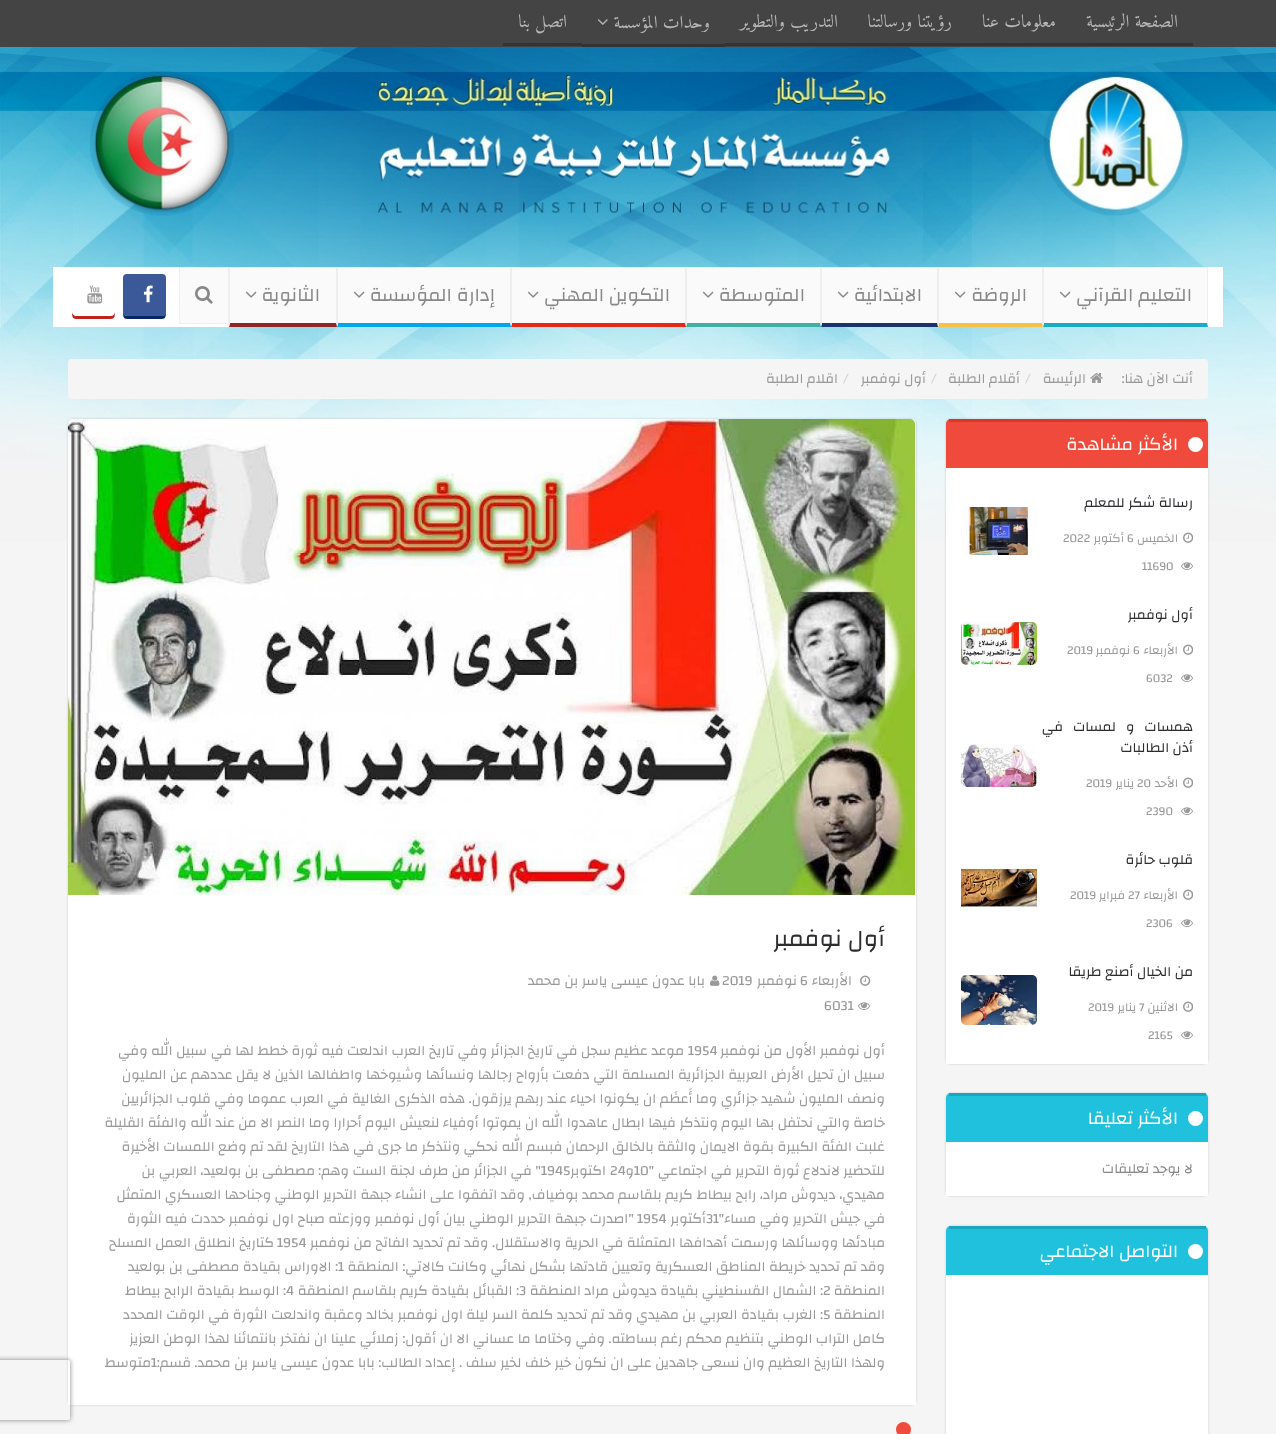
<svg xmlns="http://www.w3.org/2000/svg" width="1276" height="1434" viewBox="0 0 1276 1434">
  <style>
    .t1 { font: 18px Amiri; direction: rtl; fill: #b6b6b6; }
    .t2 { font: 19px Changa; direction: rtl; fill: #888; }
    .t3 { font: 14px Changa; direction: rtl; fill: #999; }
    .t4 { font: 14px Changa; fill: #ccc; }
    .t5 { font: 18px Changa; direction: rtl; fill: #fff; }
    .t6 { font: 14px Changa; direction: rtl; fill: #2c2d30; }
    .t7 { font: 12px Changa; direction: rtl; fill: #999; }
    .t8 { font: 12px Changa; fill: #999; }
    .t9 { font: 14px Changa; direction: rtl; fill: #888; }
    .t10 { font: 24px Changa; direction: rtl; fill: #2c2d30; }
    .t11 { font: 14px Changa; fill: #999; }
  </style>
  <defs>
    <clipPath id="clip1"><path d="M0 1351H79V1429H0ZM-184 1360H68C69 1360 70 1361 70 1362V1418C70 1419 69 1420 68 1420H-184C-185 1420-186 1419-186 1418V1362C-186 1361-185 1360-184 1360Z" clip-rule="evenodd"/></clipPath>
  </defs>
  <rect width="100%" height="100%" fill="#f5f5f5"/>
  <rect x="0" y="0" width="1276" height="47" fill="#444"/>
  <rect x="725" y="43" width="468" height="3" fill="#333"/>
  <text x="1178" y="27" class="t1">الصفحة الرئيسية</text>
  <text x="1056" y="27" class="t1">معلومات عنا</text>
  <text x="952" y="27" class="t1">رؤيتنا ورسالتنا</text>
  <text x="838" y="27" class="t1">التدريب والتطوير</text>
  <rect x="582" y="44" width="143" height="3" fill="#333"/>
  <text x="710" y="28" class="t1">وحدات المؤسسة</text>
  <image x="597" y="19" width="11" height="6" href="images/1.png"/>
  <rect x="503" y="43" width="79" height="3" fill="#333"/>
  <text x="567" y="27" class="t1">اتصل بنا</text>
  <image x="0" y="47" width="1276" height="494" href="images/2.png"/>
  <rect x="53" y="267" width="1170" height="60" fill="#fff"/>
  <rect x="1044" y="268" width="163" height="55" fill="#fafafa"/>
  <rect x="229" y="267" width="979" height="1" fill="#eee"/>
  <path d="M1208 267V327L1207 323V268Z" fill="#eee"/>
  <path d="M1208 327H1043L1044 323H1207Z" fill="#17acc6"/>
  <path d="M1043 327V267L1044 268V323Z" fill="#eee"/>
  <text x="1192" y="301" class="t2">التعليم القرآني</text>
  <image x="1059" y="291" width="12" height="7" href="images/3.png"/>
  <rect x="939" y="268" width="103" height="55" fill="#fafafa"/>
  <path d="M1043 267V327L1042 323V268Z" fill="#eee"/>
  <path d="M1043 327H938L939 323H1042Z" fill="#f5c148"/>
  <path d="M938 327V267L939 268V323Z" fill="#eee"/>
  <text x="1027" y="301" class="t2">الروضة</text>
  <image x="954" y="291" width="12" height="7" href="images/3.png"/>
  <rect x="822" y="268" width="115" height="55" fill="#fafafa"/>
  <path d="M938 267V327L937 323V268Z" fill="#eee"/>
  <path d="M938 327H821L822 323H937Z" fill="#19336b"/>
  <path d="M821 327V267L822 268V323Z" fill="#eee"/>
  <text x="922" y="301" class="t2">الابتدائية</text>
  <image x="837" y="291" width="12" height="7" href="images/3.png"/>
  <rect x="687" y="268" width="133" height="55" fill="#fafafa"/>
  <path d="M821 267V327L820 323V268Z" fill="#eee"/>
  <path d="M821 327H686L687 323H820Z" fill="#41afa4"/>
  <path d="M686 327V267L687 268V323Z" fill="#eee"/>
  <text x="805" y="301" class="t2">المتوسطة</text>
  <image x="702" y="291" width="12" height="7" href="images/3.png"/>
  <rect x="512" y="268" width="173" height="55" fill="#fafafa"/>
  <path d="M686 267V327L685 323V268Z" fill="#eee"/>
  <path d="M686 327H511L512 323H685Z" fill="#e72817"/>
  <path d="M511 327V267L512 268V323Z" fill="#eee"/>
  <text x="670" y="301" class="t2">التكوين المهني</text>
  <image x="527" y="291" width="12" height="7" href="images/3.png"/>
  <rect x="338" y="268" width="172" height="55" fill="#fafafa"/>
  <path d="M511 267V327L510 323V268Z" fill="#eee"/>
  <path d="M511 327H337L338 323H510Z" fill="#00a7ec"/>
  <path d="M337 327V267L338 268V323Z" fill="#eee"/>
  <text x="495" y="301" class="t2">إدارة المؤسسة</text>
  <image x="353" y="291" width="12" height="7" href="images/3.png"/>
  <rect x="230" y="268" width="106" height="55" fill="#fafafa"/>
  <path d="M337 267V327L336 323V268Z" fill="#eee"/>
  <path d="M337 327H229L230 323H336Z" fill="#8f2525"/>
  <path d="M229 327V267L230 268V323Z" fill="#eee"/>
  <text x="320" y="301" class="t2">الثانوية</text>
  <image x="245" y="291" width="12" height="7" href="images/3.png"/>
  <rect x="179.5" y="267.5" width="49" height="56" fill="#fafafa" stroke="#eee"/>
  <image x="195" y="286" width="18" height="18" href="images/4.png"/>
  <path d="M123 312C123 320 125 319 133 319H156C164 319 166 320 166 312C166 314 164 316 162 316H127C125 316 123 314 123 312Z" fill="#042568"/>
  <rect x="123" y="274" width="43" height="42" rx="4" fill="#3b5998"/>
  <image x="143" y="285" width="10" height="18" href="images/5.png"/>
  <path d="M72 312C72 320 74 319 82 319H105C113 319 115 320 115 312C115 314 113 316 111 316H76C74 316 72 314 72 312Z" fill="#be241c"/>
  <image x="87" y="285" width="16" height="19" href="images/6.png"/>
  <rect x="68" y="359" width="1140" height="40" rx="4" fill="#f5f5f5"/>
  <text x="1193" y="383" class="t3">أنت الآن هنا:</text>
  <image x="1090" y="373" width="13" height="10" href="images/7.png"/>
  <text x="1086" y="383" class="t3">الرئيسة</text>
  <text x="1025" y="383" class="t4">/</text>
  <text x="1020" y="383" class="t3">أقلام الطلبة</text>
  <text x="931" y="383" class="t4">/</text>
  <text x="926" y="383" class="t3">أول نوفمبر</text>
  <text x="843" y="383" class="t4">/</text>
  <text x="838" y="383" class="t3">اقلام الطلبة</text>
  <rect x="946" y="419" width="262" height="645" rx="5" fill="#0000002e" filter="blur(1px)"/>
  <path d="M951 419H1203C1206 419 1208 421 1208 424V1064H946V424C946 421 948 419 951 419Z" fill="#fff"/>
  <path d="M951 419H1203C1206 419 1208 421 1208 424V468H946V424C946 421 948 419 951 419Z" fill="#f04a3c"/>
  <rect x="949" y="419" width="257" height="3" fill="#da3729"/>
  <circle cx="1195.5" cy="444.5" r="7.5" fill="#fff"/>
  <text x="1178" y="450" class="t5">الأكثر مشاهدة</text>
  <text x="1193" y="507" class="t6">رسالة شكر للمعلم</text>
  <image x="1183" y="532" width="10" height="11" href="images/8.png"/>
  <text x="1178" y="542" class="t7">الخميس</text>
  <text x="1127" y="542" class="t8">6</text>
  <text x="1124" y="542" class="t7">أكتوبر</text>
  <text x="1063" y="542" class="t8">2022</text>
  <image x="1181" y="562" width="12" height="8" href="images/9.png"/>
  <text x="1142" y="570" class="t8">11690</text>
  <image x="961" y="507" width="76" height="48" href="images/10.png"/>
  <text x="1193" y="619" class="t6">أول نوفمبر</text>
  <image x="1183" y="644" width="10" height="11" href="images/8.png"/>
  <text x="1178" y="654" class="t7">الأربعاء</text>
  <text x="1133" y="654" class="t8">6</text>
  <text x="1130" y="654" class="t7">نوفمبر</text>
  <text x="1067" y="654" class="t8">2019</text>
  <image x="1181" y="674" width="12" height="8" href="images/9.png"/>
  <text x="1146" y="682" class="t8">6032</text>
  <image x="961" y="622" width="76" height="43" href="images/11.png"/>
  <text x="1193" y="731" word-spacing="6.5" class="t6">همسات و لمسات في</text>
  <text x="1193" y="752" class="t6">أذن الطالبات</text>
  <image x="1183" y="777" width="10" height="11" href="images/8.png"/>
  <text x="1178" y="787" class="t7">الأحد</text>
  <text x="1137" y="787" class="t8">20</text>
  <text x="1134" y="787" class="t7">يناير</text>
  <text x="1086" y="787" class="t8">2019</text>
  <image x="1181" y="807" width="12" height="8" href="images/9.png"/>
  <text x="1146" y="815" class="t8">2390</text>
  <image x="961" y="744" width="76" height="43" href="images/12.png"/>
  <text x="1193" y="864" class="t6">قلوب حائرة</text>
  <image x="1183" y="889" width="10" height="11" href="images/8.png"/>
  <text x="1178" y="899" class="t7">الأربعاء</text>
  <text x="1128" y="899" class="t8">27</text>
  <text x="1125" y="899" class="t7">فبراير</text>
  <text x="1070" y="899" class="t8">2019</text>
  <image x="1181" y="919" width="12" height="8" href="images/9.png"/>
  <text x="1146" y="927" class="t8">2306</text>
  <image x="961" y="864" width="76" height="48" href="images/13.png"/>
  <text x="1193" y="976" class="t6">من الخيال أصنع طريقا</text>
  <image x="1183" y="1001" width="10" height="11" href="images/8.png"/>
  <text x="1178" y="1011" class="t7">الاثنين</text>
  <text x="1139" y="1011" class="t8">7</text>
  <text x="1136" y="1011" class="t7">يناير</text>
  <text x="1088" y="1011" class="t8">2019</text>
  <image x="1181" y="1031" width="12" height="8" href="images/9.png"/>
  <text x="1148" y="1039" class="t8">2165</text>
  <image x="961" y="975" width="76" height="50" href="images/14.png"/>
  <rect x="946" y="1093" width="262" height="103" rx="5" fill="#0000002e" filter="blur(1px)"/>
  <path d="M951 1093H1203C1206 1093 1208 1095 1208 1098V1196H946V1098C946 1095 948 1093 951 1093Z" fill="#fff"/>
  <path d="M951 1093H1203C1206 1093 1208 1095 1208 1098V1142H946V1098C946 1095 948 1093 951 1093Z" fill="#20c1dd"/>
  <rect x="949" y="1093" width="257" height="3" fill="#1aa6be"/>
  <circle cx="1195.5" cy="1118.5" r="7.5" fill="#fff"/>
  <text x="1178" y="1124" class="t5">الأكثر تعليقا</text>
  <text x="1193" y="1173" class="t9">لا يوجد تعليقات</text>
  <rect x="946" y="1226" width="262" height="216" rx="5" fill="#0000002e" filter="blur(1px)"/>
  <path d="M951 1226H1203C1206 1226 1208 1228 1208 1231V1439H946V1231C946 1228 948 1226 951 1226Z" fill="#fff"/>
  <path d="M951 1226H1203C1206 1226 1208 1228 1208 1231V1275H946V1231C946 1228 948 1226 951 1226Z" fill="#20c1dd"/>
  <rect x="949" y="1226" width="257" height="3" fill="#1aa6be"/>
  <circle cx="1195.5" cy="1251.5" r="7.5" fill="#fff"/>
  <text x="1178" y="1257" class="t5">التواصل الاجتماعي</text>
  <rect x="68" y="419" width="848" height="986" rx="5" fill="#0000002e" filter="blur(1px)"/>
  <path d="M73 419H911C914 419 916 421 916 424V1405H68V424C68 421 70 419 73 419Z" fill="#fff"/>
  <image x="68" y="419" width="847" height="476" href="images/15.png"/>
  <text x="885" y="946" class="t10">أول نوفمبر</text>
  <image x="860" y="975" width="11" height="11" href="images/16.png"/>
  <text x="852" y="985" class="t3">الأربعاء</text>
  <text x="800" y="985" class="t11">6</text>
  <text x="797" y="985" class="t3">نوفمبر</text>
  <text x="722" y="985" class="t11">2019</text>
  <image x="710" y="975" width="10" height="11" href="images/17.png"/>
  <text x="705" y="985" class="t3">بابا عدون عيسى ياسر بن محمد</text>
  <image x="858" y="1002" width="12" height="8" href="images/9.png"/>
  <text x="824" y="1010" class="t11">6031</text>
  <text x="885" y="1055" class="t3">أول نوفمبر الأول من نوفمبر</text>
  <text x="688" y="1055" class="t11">1954</text>
  <text x="684" y="1055" class="t3">موعد عظيم سجل في تاريخ الجزائر وفي تاريخ العرب اندلعت فيه ثورة خطط لها في سبيل الله وفي</text>
  <text x="885" y="1079" class="t3">سبيل ان تحيل الأرض العربية الجزائرية المسلمة التي دفعت بأرواح رجالها ونسائها وشيوخها واطفالها الذين لا يقل عددهم عن المليون</text>
  <text x="885" y="1103" class="t3">ونصف المليون شهيد جزائري وما أَعظَم ان يكونوا احياء عند ربهم يرزقون.</text>
  <text x="465" y="1103" class="t3">هذه الذكرى الغالية في العرب عموما وفي قلوب الجزائريين</text>
  <text x="885" y="1127" class="t3">خاصة والتي نحتفل بها اليوم ونتذكر فيها ابطال عاهدوا الله ان يموتوا أوفياء لنعيش اليوم أحرارا وما النصر الا من عند الله والفئة القليلة</text>
  <text x="885" y="1151" class="t3">غلبت الفئة الكبيرة بقوة الايمان والثقة بالخالق الرحمان فبسم الله نحكي ونتذكر ما جرى في هذا التاريخ لقد تم وضع اللمسات الأخيرة</text>
  <text x="885" y="1175" class="t3">للتحضير لاندلاع ثورة التحرير في اجتماعي "</text>
  <text x="634" y="1175" class="t11">10</text>
  <text x="634" y="1175" class="t3">و</text>
  <text x="610" y="1175" class="t11">24</text>
  <text x="606" y="1175" class="t3">اكتوبر</text>
  <text x="541" y="1175" class="t11">1945</text>
  <text x="541" y="1175" class="t3">" في الجزائر من طرف لجنة الست وهم:</text>
  <text x="315" y="1175" class="t3">مصطفى بن بولعيد، العربي بن</text>
  <text x="885" y="1199" class="t3">مهيدي، ديدوش مراد، رابح بيطاط كريم بلقاسم</text>
  <text x="615" y="1199" class="t3">محمد بوضياف, وقد اتفقوا على انشاء جبهة التحرير الوطني وجناحها العسكري المتمثل</text>
  <text x="885" y="1223" class="t3">في جيش التحرير وفي مساء"</text>
  <text x="706" y="1223" class="t11">31</text>
  <text x="706" y="1223" class="t3">أكتوبر</text>
  <text x="637" y="1223" class="t11">1954</text>
  <text x="634" y="1223" class="t3">"اصدرت جبهة التحرير الوطني بيان أول نوفمبر ووزعته صباح اول نوفمبر حددت فيه الثورة</text>
  <text x="885" y="1247" class="t3">مبادئها ووسائلها ورسمت أهدافها المتمثلة في الحرية والاستقلال. وقد تم تحديد الفاتح من نوفمبر</text>
  <text x="277" y="1247" class="t11">1954</text>
  <text x="274" y="1247" class="t3">كتاريخ انطلاق العمل المسلح</text>
  <text x="885" y="1271" class="t3">وقد تم تحديد خريطة المناطق العسكرية وتعيين قادتها بشكل نهائي وكانت كالاتي: المنطقة</text>
  <text x="338" y="1271" class="t11">1</text>
  <text x="338" y="1271" class="t3">: الاوراس بقيادة مصطفى بن بولعيد</text>
  <text x="885" y="1295" class="t3">المنطقة</text>
  <text x="823" y="1295" class="t11">2</text>
  <text x="823" y="1295" class="t3">: الشمال القسنطيني بقيادة ديدوش مراد</text>
  <text x="581" y="1295" class="t3">المنطقة</text>
  <text x="519" y="1295" class="t11">3</text>
  <text x="519" y="1295" class="t3">: القبائل بقيادة كريم بلقاسم المنطقة</text>
  <text x="286" y="1295" class="t11">4</text>
  <text x="286" y="1295" class="t3">: الوسط بقيادة الرابح بيطاط</text>
  <text x="885" y="1319" class="t3">المنطقة</text>
  <text x="823" y="1319" class="t11">5</text>
  <text x="823" y="1319" class="t3">: الغرب بقيادة العربي بن مهيدي وقد تم تحديد كلمة السر ليلة اول نوفمبر بخالد وعقبة واندلعت الثورة في الوقت المحدد</text>
  <text x="885" y="1343" class="t3">كامل التراب الوطني بتنظيم محكم رغم بساطته.</text>
  <text x="605" y="1343" class="t3">وفي وختاما ما عساني الا ان أقول: زملائي علينا ان نفتخر بانتمائنا لهذا الوطن العزيز</text>
  <text x="885" y="1367" class="t3">ولهذا التاريخ العظيم وان نسعى جاهدين على ان نكون خير خلف لخير سلف . إعداد الطالب: بابا عدون عيسى ياسر بن محمد.</text>
  <text x="191" y="1367" class="t3">قسم:</text>
  <text x="151" y="1367" class="t11">1</text>
  <text x="151" y="1367" class="t3">متوسط</text>
  <circle cx="903.5" cy="1429.5" r="7.5" fill="#f04a3c"/>
  <g clip-path="url(#clip1)">
    <rect x="-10" y="1360" width="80" height="60" rx="2" fill="#808080" filter="blur(2.5px)"/>
  </g>
</svg>
